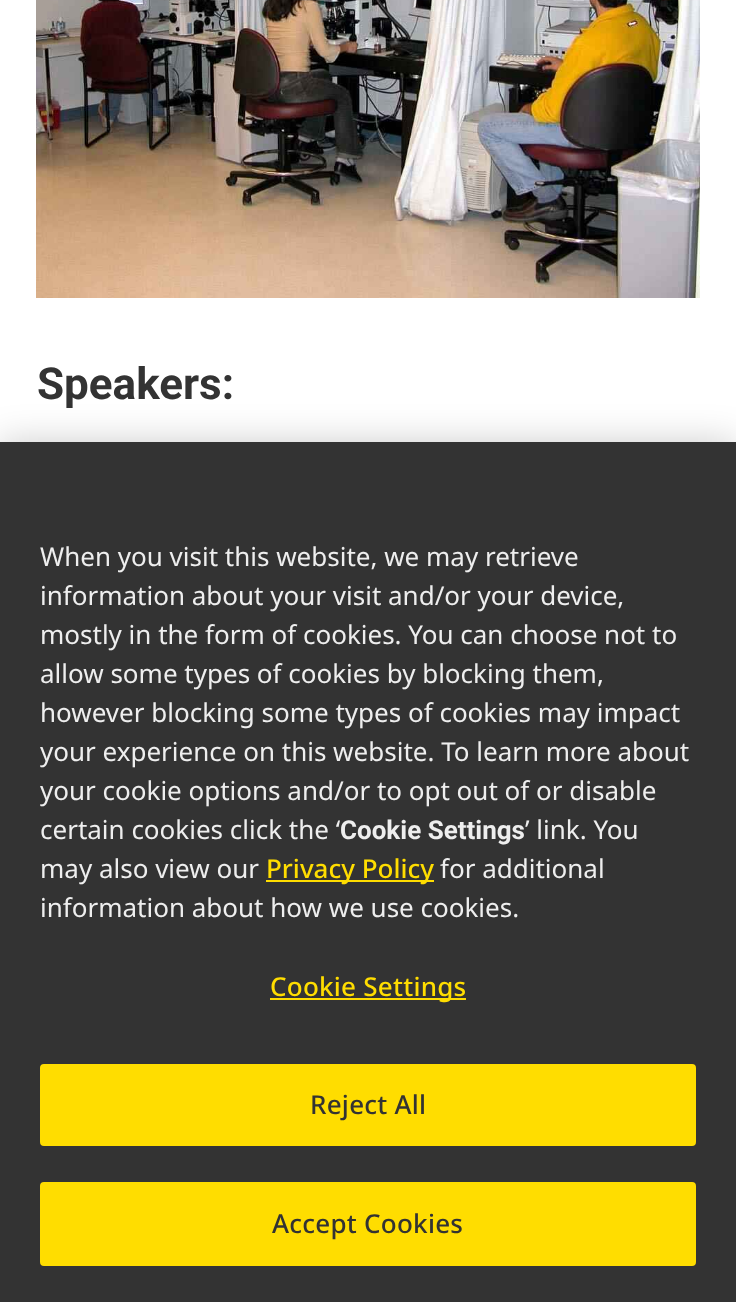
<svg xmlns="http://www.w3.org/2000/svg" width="736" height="1302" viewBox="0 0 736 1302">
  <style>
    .t1 { font: bold 44px Roboto; fill: #333; }
    .t2 { font: 26px Noto Sans; fill: #eee; }
    .t3 { font: bold 26px Roboto; fill: #eee; }
    .t4 { font: 500 26px Noto Sans; fill: #fd0; }
    .t5 { font: 500 26px Noto Sans; letter-spacing: 0.25px; fill: #fd0; }
    .t6 { font: 500 26px Noto Sans; letter-spacing: 0.25px; fill: #333; }
  </style>
  <rect width="100%" height="100%" fill="#fff"/>
  <image x="36" y="0" width="664" height="298" href="images/1.png"/>
  <text x="37" y="399" class="t1">Speakers:</text>
  <rect x="0" y="442" width="736" height="860" fill="#00000033" filter="blur(18px)"/>
  <rect x="0" y="442" width="736" height="860" fill="#333"/>
  <text x="40" y="566" class="t2">When you visit this website, we may retrieve</text>
  <text x="40" y="605" class="t2">information about your visit and/or your device,</text>
  <text x="40" y="644" class="t2">mostly in the form of cookies. You can choose not to</text>
  <text x="40" y="683" class="t2">allow some types of cookies by blocking them,</text>
  <text x="40" y="722" class="t2">however blocking some types of cookies may impact</text>
  <text x="40" y="761" class="t2">your experience on this website. To learn more about</text>
  <text x="40" y="800" class="t2">your cookie options and/or to opt out of or disable</text>
  <text x="40" y="839" class="t2">certain cookies click the ‘</text>
  <text x="340" y="839" class="t3">Cookie Settings</text>
  <text x="525" y="839" class="t2">’ link. You</text>
  <text x="40" y="878" class="t2">may also view our</text>
  <rect x="266" y="880" width="168" height="2" fill="#fd0"/>
  <text x="266" y="878" class="t4">Privacy Policy</text>
  <text x="440" y="878" class="t2">for additional</text>
  <text x="40" y="917" class="t2">information about how we use cookies.</text>
  <rect x="270" y="998" width="196" height="2" fill="#fd0"/>
  <text x="270" y="996" class="t5">Cookie Settings</text>
  <rect x="41" y="1065" width="654" height="80" rx="3" fill="#fd0" stroke="#fd0" stroke-width="2"/>
  <text x="310" y="1114" class="t6">Reject All</text>
  <rect x="41" y="1183" width="654" height="82" rx="3" fill="#fd0" stroke="#fd0" stroke-width="2"/>
  <text x="272" y="1233" class="t6">Accept Cookies</text>
</svg>
